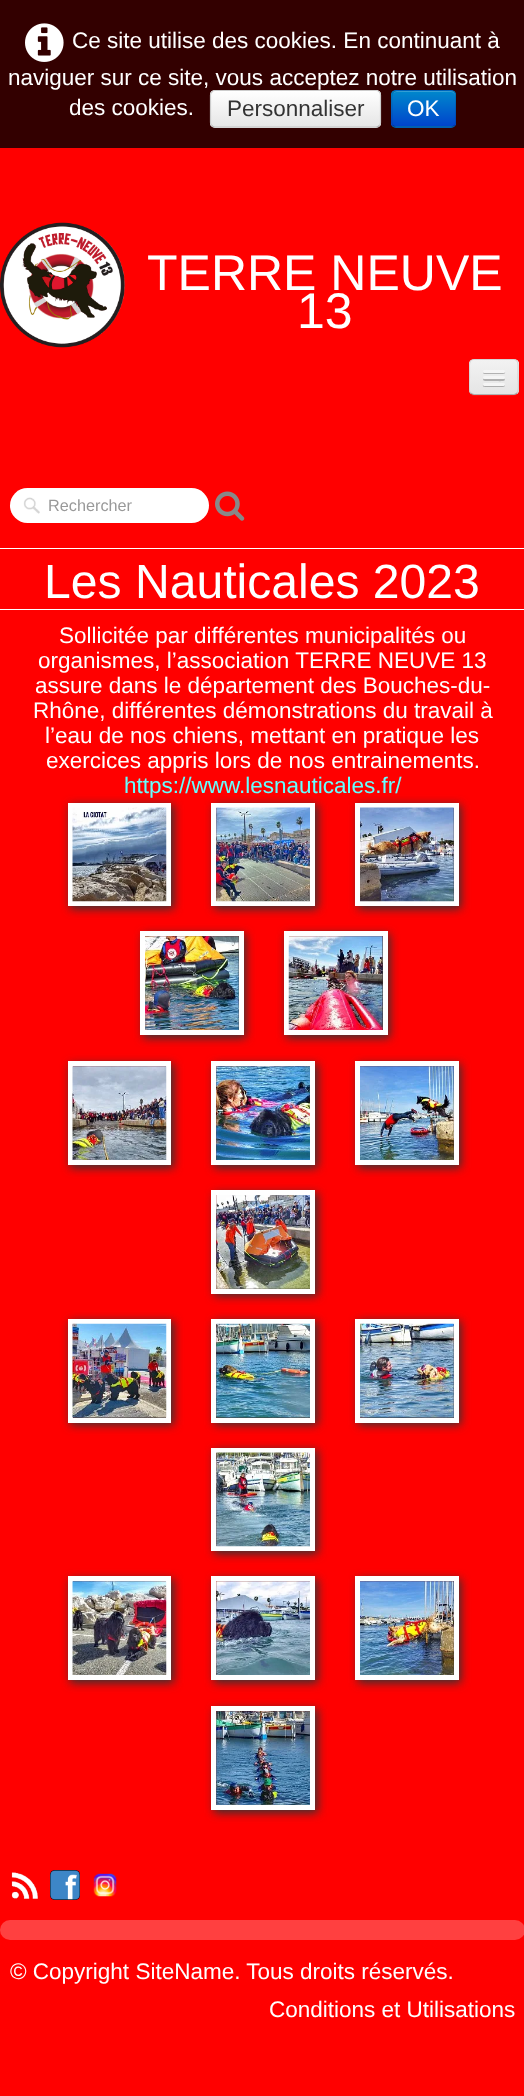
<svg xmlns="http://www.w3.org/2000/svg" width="524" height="2096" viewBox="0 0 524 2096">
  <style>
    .t1 { font: 22.5px Liberation Sans; fill: #fff; }
    .t2 { font: 22.5px Liberation Sans; fill: #333; }
    .t3 { font: 50px Liberation Sans; fill: #fff; }
    .t4 { font: 16.25px Liberation Sans; fill: #999; }
    .t5 { font: 48.1px Liberation Sans; fill: #fff; }
    .t6 { font: 22.5px Liberation Sans; fill: #6ff; }
  </style>
  <defs>
    <clipPath id="clip1"><rect x="210" y="90" width="171" height="38" rx="5"/></clipPath>
    <linearGradient id="g1" gradientUnits="userSpaceOnUse" x1="296" y1="91" x2="296" y2="126"><stop offset="0" stop-color="#fff"/><stop offset="1" stop-color="#e6e6e6"/></linearGradient>
    <clipPath id="clip2"><rect x="391" y="90" width="65" height="38" rx="5"/></clipPath>
    <linearGradient id="g2" gradientUnits="userSpaceOnUse" x1="424" y1="91" x2="424" y2="126"><stop offset="0" stop-color="#08c"/><stop offset="1" stop-color="#04c"/></linearGradient>
    <clipPath id="clip3"><rect x="469" y="359" width="50" height="36" rx="5"/></clipPath>
    <linearGradient id="g3" gradientUnits="userSpaceOnUse" x1="494" y1="360" x2="494" y2="394"><stop offset="0" stop-color="#f2f2f2"/><stop offset="1" stop-color="#e5e5e5"/></linearGradient>
  </defs>
  <rect width="100%" height="100%" fill="#f00"/>
  <rect x="0" y="0" width="524" height="148" fill="#300"/>
  <image x="25" y="23" width="39" height="39" href="images/1.png"/>
  <text x="72" y="48" class="t1">Ce site utilise des cookies. En continuant à</text>
  <text x="8" y="85" class="t1">naviguer sur ce site, vous acceptez notre utilisation</text>
  <text x="69" y="115" class="t1">des cookies.</text>
  <rect x="210" y="90" width="171" height="38" rx="5" fill="#f5f5f5"/>
  <g clip-path="url(#clip1)">
    <rect x="210" y="91" width="171" height="35" fill="url(#g1)"/>
  </g>
  <path d="M379.5 125.5C378.5 126.5 377.5 127 376 127H215C214 127 212.5 126.5 212 125.5" fill="none" stroke="#b3b3b3" stroke-width="1.2"/>
  <path d="M212 125.5C211 125 210.5 123.5 210.5 122.5V95C210.5 94 211 92.5 212 92C212.5 91 214 90.5 215 90.5H376C377.5 90.5 378.5 91 379.5 92C380 92.5 380.5 94 380.5 95V122.5C380.5 123.5 380 125 379.5 125.5" fill="none" stroke="#ccc" stroke-width="1.2"/>
  <text x="227" y="116" class="t2">Personnaliser</text>
  <rect x="391" y="90" width="65" height="38" rx="5" fill="#006dcc"/>
  <g clip-path="url(#clip2)">
    <rect x="391" y="91" width="65" height="35" fill="url(#g2)"/>
  </g>
  <path d="M396 92H451C453 92 455 94 455 96V95C455 93 453 91 451 91H397C396 91 394 92 394 93Z" fill="#ffffff33"/>
  <path d="M454.5 125.5C453.5 126.5 452.5 127 451 127H396C395 127 394 126.5 393 125.5" fill="none" stroke="#00000040" stroke-width="1.2"/>
  <path d="M393 125.5C391 123.5 392 120.5 392 118V109C392 91 388.5 90.5 405.5 90.5H442C459 90.5 455.5 91 455.5 109V118C455.5 120.5 456.5 123.5 454.5 125.5" fill="none" stroke="#0000001a" stroke-width="1.2"/>
  <text x="407" y="116" class="t1">OK</text>
  <image x="0" y="222" width="125" height="126" href="images/2.png"/>
  <text x="147" y="290" class="t3">TERRE NEUVE</text>
  <text x="297" y="328" class="t3">13</text>
  <path d="M469 392L470 394C472 397 478 396 481 396H507C520 396 519 395 519 382V363V386C519 396 517 395 507 395H480C477 395 471 396 469 392Z" fill="#ff1313"/>
  <rect x="469" y="359" width="50" height="36" rx="5" fill="#ededed"/>
  <g clip-path="url(#clip3)">
    <rect x="469" y="360" width="50" height="34" fill="url(#g3)"/>
  </g>
  <path d="M517 393C516 394 515 394.5 514 394.5H474C472.5 394.5 471.5 394 470.5 393" fill="none" stroke="#00000040" stroke-width="1.2"/>
  <path d="M470.5 393C468 390.5 469.5 380 469.5 377V368C469.5 365 468.5 360.5 473 359.5H514.5C519 360.5 518 365 518 368V377C518 380 519.5 390.5 517 393" fill="none" stroke="#0000001a" stroke-width="1.2"/>
  <path d="M483 372.5C482.5 374.5 486.5 374 487.5 374H500.5C501 374 506 374.5 505 372L504 372.5C502 372.5 483.5 372.5 483 372.5Z" fill="#b2b2b2"/>
  <rect x="483" y="370" width="22" height="3" rx="1.5" fill="#f5f5f5"/>
  <path d="M483.5 378.5C481.5 381.5 487 381 487.5 381H494C496 381 504 381.5 504.5 380.5C505 380 505 379 504.5 378.5C504 379 484.5 379 483.5 378.5Z" fill="#b0b0b0"/>
  <rect x="483" y="376" width="22" height="3" rx="1.5" fill="#f5f5f5"/>
  <path d="M483 385C482 387.5 487 387 487.5 387H500.5C500.5 387 507 387.5 504.5 384.5L504 385Z" fill="#aeaeae"/>
  <rect x="483" y="383" width="22" height="3" rx="1.5" fill="#f5f5f5"/>
  <rect x="10" y="488" width="199" height="35" rx="17.5" fill="#fff"/>
  <image x="23" y="497" width="17" height="17" href="images/3.png"/>
  <text x="48" y="511" class="t4">Rechercher</text>
  <image x="215" y="491" width="30" height="30" href="images/4.png"/>
  <rect x="0" y="548" width="524" height="1" fill="#fff"/>
  <rect x="0" y="609" width="524" height="1" fill="#fff"/>
  <text x="44" y="598" class="t5">Les Nauticales 2023</text>
  <text x="59" y="643" class="t1">Sollicitée par différentes municipalités ou</text>
  <text x="38" y="668" class="t1">organismes, l’association TERRE NEUVE 13</text>
  <text x="35" y="693" class="t1">assure dans le département des Bouches-du-</text>
  <text x="33" y="718" class="t1">Rhône, différentes démonstrations du travail à</text>
  <text x="45" y="743" class="t1">l’eau de nos chiens, mettant en pratique les</text>
  <text x="46" y="768" class="t1">exercices appris lors de nos entrainements.</text>
  <rect x="70" y="805" width="104" height="104" fill="#333" filter="blur(5px)"/>
  <rect x="214" y="805" width="104" height="104" fill="#333" filter="blur(5px)"/>
  <rect x="358" y="805" width="103" height="104" fill="#333" filter="blur(5px)"/>
  <text x="124" y="793" class="t6">https://www.lesnauticales.fr/</text>
  <rect x="70.5" y="805.5" width="98" height="98" fill="none" stroke="#fff" stroke-width="5"/>
  <rect x="213.5" y="805.5" width="99" height="98" fill="none" stroke="#fff" stroke-width="5"/>
  <rect x="357.5" y="805.5" width="99" height="98" fill="none" stroke="#fff" stroke-width="5"/>
  <image x="72" y="807" width="95" height="95" href="images/5.png"/>
  <image x="216" y="807" width="94" height="95" href="images/6.png"/>
  <image x="360" y="807" width="94" height="95" href="images/7.png"/>
  <rect x="143" y="934" width="103" height="104" fill="#333" filter="blur(5px)"/>
  <rect x="286" y="934" width="104" height="104" fill="#333" filter="blur(5px)"/>
  <rect x="142.5" y="933.5" width="99" height="99" fill="none" stroke="#fff" stroke-width="5"/>
  <rect x="286.5" y="933.5" width="99" height="99" fill="none" stroke="#fff" stroke-width="5"/>
  <image x="145" y="936" width="94" height="94" href="images/8.png"/>
  <image x="288" y="936" width="95" height="94" href="images/9.png"/>
  <rect x="70" y="1064" width="104" height="104" fill="#333" filter="blur(5px)"/>
  <rect x="214" y="1064" width="104" height="104" fill="#333" filter="blur(5px)"/>
  <rect x="358" y="1064" width="103" height="104" fill="#333" filter="blur(5px)"/>
  <rect x="70.5" y="1063.5" width="98" height="99" fill="none" stroke="#fff" stroke-width="5"/>
  <rect x="213.5" y="1063.5" width="99" height="99" fill="none" stroke="#fff" stroke-width="5"/>
  <rect x="357.5" y="1063.5" width="99" height="99" fill="none" stroke="#fff" stroke-width="5"/>
  <image x="72" y="1066" width="95" height="94" href="images/10.png"/>
  <image x="216" y="1066" width="94" height="94" href="images/11.png"/>
  <image x="360" y="1066" width="94" height="94" href="images/12.png"/>
  <rect x="214" y="1193" width="104" height="103" fill="#333" filter="blur(5px)"/>
  <rect x="213.5" y="1192.5" width="99" height="99" fill="none" stroke="#fff" stroke-width="5"/>
  <image x="216" y="1195" width="94" height="94" href="images/13.png"/>
  <rect x="70" y="1321" width="104" height="104" fill="#333" filter="blur(5px)"/>
  <rect x="214" y="1321" width="104" height="104" fill="#333" filter="blur(5px)"/>
  <rect x="358" y="1321" width="103" height="104" fill="#333" filter="blur(5px)"/>
  <rect x="70.5" y="1321.5" width="98" height="99" fill="none" stroke="#fff" stroke-width="5"/>
  <rect x="213.5" y="1321.5" width="99" height="99" fill="none" stroke="#fff" stroke-width="5"/>
  <rect x="357.5" y="1321.5" width="99" height="99" fill="none" stroke="#fff" stroke-width="5"/>
  <image x="72" y="1323" width="95" height="95" href="images/14.png"/>
  <image x="216" y="1323" width="94" height="95" href="images/15.png"/>
  <image x="360" y="1323" width="94" height="95" href="images/16.png"/>
  <rect x="214" y="1450" width="104" height="104" fill="#333" filter="blur(5px)"/>
  <rect x="213.5" y="1450.5" width="99" height="98" fill="none" stroke="#fff" stroke-width="5"/>
  <image x="216" y="1452" width="94" height="95" href="images/17.png"/>
  <rect x="70" y="1579" width="104" height="104" fill="#333" filter="blur(5px)"/>
  <rect x="214" y="1579" width="104" height="104" fill="#333" filter="blur(5px)"/>
  <rect x="358" y="1579" width="103" height="104" fill="#333" filter="blur(5px)"/>
  <rect x="70.5" y="1578.5" width="98" height="99" fill="none" stroke="#fff" stroke-width="5"/>
  <rect x="213.5" y="1578.5" width="99" height="99" fill="none" stroke="#fff" stroke-width="5"/>
  <rect x="357.5" y="1578.5" width="99" height="99" fill="none" stroke="#fff" stroke-width="5"/>
  <image x="72" y="1581" width="95" height="94" href="images/18.png"/>
  <image x="216" y="1581" width="94" height="94" href="images/19.png"/>
  <image x="360" y="1581" width="94" height="94" href="images/20.png"/>
  <rect x="214" y="1709" width="104" height="104" fill="#333" filter="blur(5px)"/>
  <rect x="213.5" y="1708.5" width="99" height="99" fill="none" stroke="#fff" stroke-width="5"/>
  <image x="216" y="1711" width="94" height="94" href="images/21.png"/>
  <image x="11" y="1872" width="28" height="27" href="images/22.png"/>
  <image x="50" y="1870" width="30" height="30" href="images/23.png"/>
  <image x="93" y="1873" width="24" height="24" href="images/24.png"/>
  <rect x="0" y="1920" width="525" height="20" rx="10" fill="#ff4040"/>
  <text x="10" y="1979" class="t1">© Copyright SiteName. Tous droits réservés.</text>
  <text x="269" y="2017" class="t1">Conditions et Utilisations</text>
</svg>
